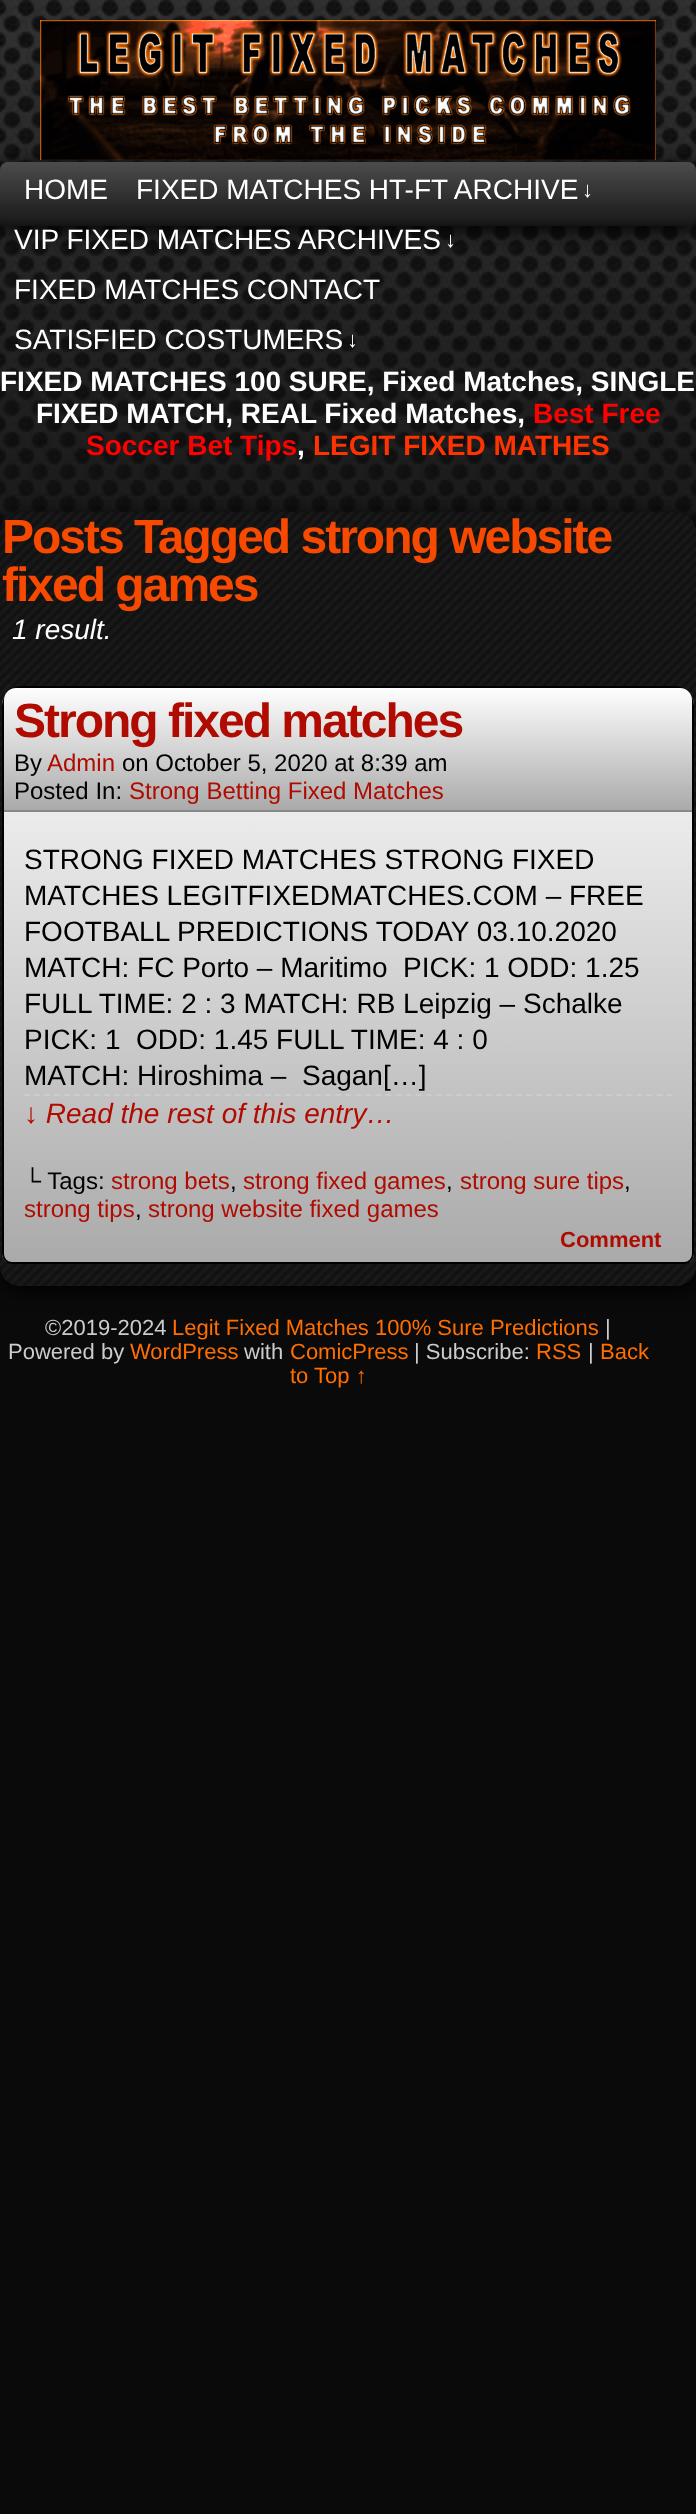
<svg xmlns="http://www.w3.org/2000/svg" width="696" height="2514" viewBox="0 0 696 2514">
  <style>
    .t1 { font: 28px Liberation Sans; fill: #fff; }
    .t2 { font: 22px Liberation Sans; fill: #fff; }
    .t3 { font: bold 28px Liberation Sans; fill: #fff; }
    .t4 { font: bold 28px Liberation Sans; fill: #f00; }
    .t5 { font: bold 28px Liberation Sans; fill: #f30; }
    .t6 { font: bold 48px Liberation Sans; letter-spacing: -2px; fill: #f74a00; }
    .t7 { font: italic 28px Liberation Sans; fill: #fff; }
    .t8 { font: bold 48px Liberation Sans; letter-spacing: -2px; fill: #b00b00; }
    .t9 { font: 24px Liberation Sans; fill: #000; }
    .t10 { font: 24px Liberation Sans; fill: #b00b00; }
    .t11 { font: 28px Liberation Sans; fill: #000; }
    .t12 { font: italic 28px Liberation Sans; fill: #b00b00; }
    .t13 { font: bold 22px Liberation Sans; fill: #b00b00; }
    .t14 { font: 22px Liberation Sans; fill: #ccc; }
    .t15 { font: 22px Liberation Sans; fill: #ff6e00; }
  </style>
  <defs>
    <linearGradient id="g1" gradientUnits="userSpaceOnUse" x1="348" y1="162" x2="348" y2="226"><stop offset="0" stop-color="#4c4c4c"/><stop offset="0.91" stop-color="#1c1c1c"/><stop offset="1" stop-color="#131313"/></linearGradient>
    <clipPath id="clip1"><path d="M22 686H674C685 686 694 695 694 706V1254C694 1259.5 689.5 1264 684 1264H12C6.5 1264 2 1259.5 2 1254V706C2 695 11 686 22 686Z"/></clipPath>
    <linearGradient id="g2" gradientUnits="userSpaceOnUse" x1="348" y1="688" x2="348" y2="1262"><stop offset="0" stop-color="#fefefe"/><stop offset="1" stop-color="#aaa"/></linearGradient>
    <linearGradient id="g3" gradientUnits="userSpaceOnUse" x1="348" y1="688" x2="348" y2="810"><stop offset="0" stop-color="#fefefe"/><stop offset="1" stop-color="#aaa"/></linearGradient>
  </defs>
  <rect width="100%" height="100%" fill="#0a0a0a"/>
  <image x="0" y="0" width="696" height="532" href="images/1.png"/>
  <rect x="2" y="166" width="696" height="64" rx="8" fill="#000" filter="blur(10px)"/>
  <image x="40" y="20" width="616" height="140" href="images/2.png"/>
  <rect x="0" y="162" width="696" height="64" rx="8" fill="url(#g1)"/>
  <text x="24" y="199" class="t1">HOME</text>
  <text x="136" y="199" class="t1">FIXED MATCHES HT-FT ARCHIVE</text>
  <text x="582" y="197" class="t2">↓</text>
  <text x="14" y="249" class="t1">VIP FIXED MATCHES ARCHIVES</text>
  <text x="445" y="247" class="t2">↓</text>
  <text x="14" y="299" class="t1">FIXED MATCHES CONTACT</text>
  <text x="14" y="349" class="t1">SATISFIED COSTUMERS</text>
  <text x="347" y="347" class="t2">↓</text>
  <text x="0" y="391" class="t3">FIXED MATCHES 100 SURE, Fixed Matches, SINGLE</text>
  <text x="36" y="423" class="t3">FIXED MATCH, REAL Fixed Matches,</text>
  <text x="533" y="423" class="t4">Best Free</text>
  <text x="86" y="455" class="t4">Soccer Bet Tips</text>
  <text x="297" y="455" class="t3">,</text>
  <text x="313" y="455" class="t5">LEGIT FIXED MATHES</text>
  <rect x="2" y="516" width="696" height="774" rx="20" fill="#000" filter="blur(10px)"/>
  <rect x="0" y="512" width="696" height="774" rx="20" fill="#111"/>
  <image x="0" y="512" width="696" height="774" href="images/3.png"/>
  <text x="2" y="553" class="t6">Posts Tagged strong website</text>
  <text x="2" y="601" class="t6">fixed games</text>
  <text x="12" y="639" class="t7">1 result.</text>
  <g clip-path="url(#clip1)">
    <rect x="2" y="688" width="692" height="574" fill="url(#g2)"/>
  </g>
  <path d="M22 687H674C684.5 687 693 695.5 693 706V1254C693 1259 689 1263 684 1263H12C7 1263 3 1259 3 1254V706C3 695.5 11.5 687 22 687Z" fill="none" stroke="#000" stroke-width="2"/>
  <path d="M16 688H680C686.5 688 692 693.5 692 700V810H4V700C4 693.5 9.5 688 16 688Z" fill="url(#g3)"/>
  <rect x="4" y="810" width="688" height="2" fill="#888"/>
  <text x="14" y="737" class="t8">Strong fixed matches</text>
  <text x="14" y="771" class="t9">By</text>
  <text x="47" y="771" class="t10">Admin</text>
  <text x="122" y="771" class="t9">on October 5, 2020 at 8:39 am</text>
  <text x="14" y="799" class="t9">Posted In:</text>
  <text x="129" y="799" class="t10">Strong Betting Fixed Matches</text>
  <text x="24" y="869" class="t11">STRONG FIXED MATCHES STRONG FIXED</text>
  <text x="24" y="905" class="t11">MATCHES LEGITFIXEDMATCHES.COM – FREE</text>
  <text x="24" y="941" class="t11">FOOTBALL PREDICTIONS TODAY 03.10.2020</text>
  <text x="24" y="977" class="t11" xml:space="preserve">MATCH: FC Porto – Maritimo  PICK: 1 ODD: 1.25</text>
  <text x="24" y="1013" class="t11">FULL TIME: 2 : 3 MATCH: RB Leipzig – Schalke</text>
  <text x="24" y="1049" class="t11" xml:space="preserve">PICK: 1  ODD: 1.45 FULL TIME: 4 : 0</text>
  <text x="24" y="1085" class="t11" xml:space="preserve">MATCH: Hiroshima –  Sagan[…]</text>
  <path d="M24 1095H672" fill="none" stroke="#ccc" stroke-width="2" stroke-dasharray="6 4.04"/>
  <text x="24" y="1123" class="t12">↓ Read the rest of this entry…</text>
  <text x="24" y="1189" class="t9">└ Tags:</text>
  <text x="111" y="1189" class="t10">strong bets</text>
  <text x="230" y="1189" class="t9">,</text>
  <text x="243" y="1189" class="t10">strong fixed games</text>
  <text x="446" y="1189" class="t9">,</text>
  <text x="460" y="1189" class="t10">strong sure tips</text>
  <text x="624" y="1189" class="t9">,</text>
  <text x="24" y="1217" class="t10">strong tips</text>
  <text x="135" y="1217" class="t9">,</text>
  <text x="148" y="1217" class="t10">strong website fixed games</text>
  <text x="560" y="1247" class="t13">Comment</text>
  <text x="45" y="1335" class="t14">©2019-2024</text>
  <text x="172" y="1335" class="t15">Legit Fixed Matches 100% Sure Predictions</text>
  <text x="605" y="1335" class="t14">|</text>
  <text x="8" y="1359" class="t14">Powered by</text>
  <text x="130" y="1359" class="t15">WordPress</text>
  <text x="244" y="1359" class="t14">with</text>
  <text x="290" y="1359" class="t15">ComicPress</text>
  <text x="414" y="1359" class="t14">| Subscribe:</text>
  <text x="536" y="1359" class="t15">RSS</text>
  <text x="588" y="1359" class="t14">|</text>
  <text x="600" y="1359" class="t15">Back</text>
  <text x="290" y="1383" class="t15">to Top ↑</text>
</svg>
